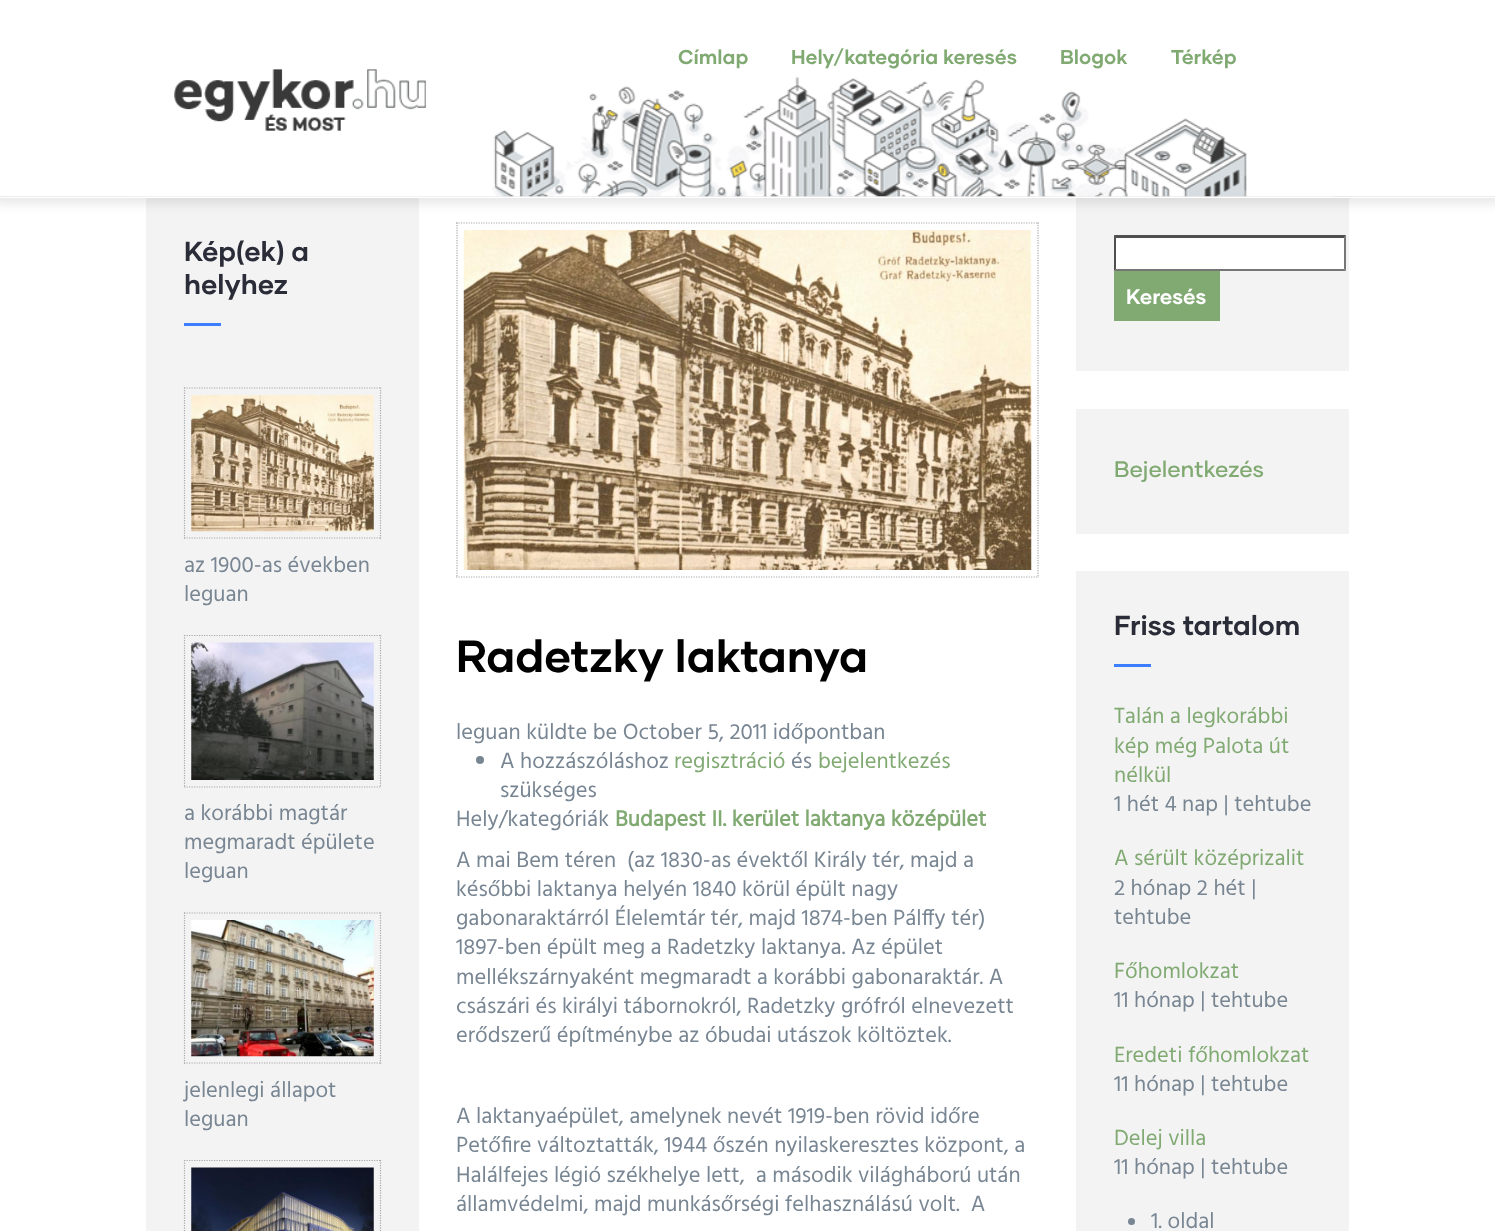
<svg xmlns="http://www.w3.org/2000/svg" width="1495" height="1231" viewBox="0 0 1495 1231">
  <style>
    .t1 { font: bold 20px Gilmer; fill: #81aa73; }
    .t2 { font: bold 27.5px Gilmer; fill: #2a2c38; }
    .t3 { font: 22.5px Hind; fill: #788592; }
    .t4 { font: bold 45px Gilmer; fill: #000; }
    .t5 { font: 22.5px Hind; fill: #81aa73; }
    .t6 { font: bold 22.5px Hind; fill: #81aa73; }
    .t7 { font: bold 21px Gilmer; fill: #fff; }
    .t8 { font: 500 22.5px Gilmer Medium; fill: #81aa73; }
  </style>
  <rect width="100%" height="100%" fill="#fff"/>
  <rect x="146" y="198" width="273" height="1033" fill="#f3f3f3"/>
  <rect x="1076" y="198" width="273" height="173" fill="#f3f3f3"/>
  <rect x="-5" y="-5" width="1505" height="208" fill="#0000001a" filter="blur(6px)"/>
  <rect x="0" y="0" width="1495" height="198" fill="#fff"/>
  <rect x="0" y="196" width="1495" height="1" fill="#ebebeb"/>
  <image x="128" y="77" width="1205" height="120" href="images/1.png"/>
  <text x="678" y="64" class="t1">Címlap</text>
  <text x="791" y="64" class="t1">Hely/kategória keresés</text>
  <text x="1060" y="64" class="t1">Blogok</text>
  <text x="1171" y="64" class="t1">Térkép</text>
  <image x="174" y="69" width="252" height="62" href="images/2.png"/>
  <text x="184" y="261" class="t2">Kép(ek) a</text>
  <text x="184" y="294" class="t2">helyhez</text>
  <rect x="184" y="323" width="37" height="3" fill="#3b7eff"/>
  <path d="M184 388H381" fill="none" stroke="#aaa" stroke-width="1.2" stroke-dasharray="1.25 1.25"/>
  <path d="M380.5 387.5V539" fill="none" stroke="#aaa" stroke-width="1.2" stroke-dasharray="1.25 1.25"/>
  <path d="M184 538H381" fill="none" stroke="#aaa" stroke-width="1.2" stroke-dasharray="1.25 1.25"/>
  <path d="M184.5 387.5V539" fill="none" stroke="#aaa" stroke-width="1.2" stroke-dasharray="1.25 1.25"/>
  <image x="191" y="395" width="183" height="137" href="images/3.png"/>
  <text x="184" y="572" class="t3">az 1900-as években</text>
  <text x="184" y="601" class="t3">leguan</text>
  <path d="M184 635.5H381" fill="none" stroke="#aaa" stroke-width="1.2" stroke-dasharray="1.25 1.25"/>
  <path d="M380.5 635V787.5" fill="none" stroke="#aaa" stroke-width="1.2" stroke-dasharray="1.25 1.25"/>
  <path d="M184 787H381" fill="none" stroke="#aaa" stroke-width="1.2" stroke-dasharray="1.25 1.25"/>
  <path d="M184.5 635V787.5" fill="none" stroke="#aaa" stroke-width="1.2" stroke-dasharray="1.25 1.25"/>
  <image x="191" y="642" width="183" height="138" href="images/4.png"/>
  <text x="184" y="820" class="t3">a korábbi magtár</text>
  <text x="184" y="849" class="t3">megmaradt épülete</text>
  <text x="184" y="878" class="t3">leguan</text>
  <path d="M184 913H381" fill="none" stroke="#aaa" stroke-width="1.2" stroke-dasharray="1.25 1.25"/>
  <path d="M380.5 912.5V1064" fill="none" stroke="#aaa" stroke-width="1.2" stroke-dasharray="1.25 1.25"/>
  <path d="M184 1063H381" fill="none" stroke="#aaa" stroke-width="1.2" stroke-dasharray="1.25 1.25"/>
  <path d="M184.5 912.5V1064" fill="none" stroke="#aaa" stroke-width="1.2" stroke-dasharray="1.25 1.25"/>
  <image x="191" y="920" width="183" height="137" href="images/5.png"/>
  <text x="184" y="1097" class="t3">jelenlegi állapot</text>
  <text x="184" y="1126" class="t3">leguan</text>
  <path d="M184 1160.5H381" fill="none" stroke="#aaa" stroke-width="1.2" stroke-dasharray="1.25 1.25"/>
  <path d="M184.5 1160V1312.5" fill="none" stroke="#aaa" stroke-width="1.2" stroke-dasharray="1.25 1.25"/>
  <image x="191" y="1167" width="183" height="64" href="images/6.png"/>
  <path d="M380.5 1160V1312.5" fill="none" stroke="#aaa" stroke-width="1.2" stroke-dasharray="1.25 1.25"/>
  <path d="M456 223H1039" fill="none" stroke="#aaa" stroke-width="1.2" stroke-dasharray="1.25 1.25"/>
  <path d="M1038 222.5V577.5" fill="none" stroke="#aaa" stroke-width="1.2" stroke-dasharray="1.25 1.25"/>
  <path d="M456 577H1039" fill="none" stroke="#aaa" stroke-width="1.2" stroke-dasharray="1.25 1.25"/>
  <path d="M457 222.5V577.5" fill="none" stroke="#aaa" stroke-width="1.2" stroke-dasharray="1.25 1.25"/>
  <image x="463" y="230" width="569" height="340" href="images/7.png"/>
  <text x="456" y="672" class="t4">Radetzky laktanya</text>
  <text x="456" y="739" class="t3">leguan küldte be October 5, 2011 időpontban</text>
  <circle cx="480" cy="760" r="4" fill="#788592"/>
  <text x="500" y="768" class="t3">A hozzászóláshoz</text>
  <text x="674" y="768" class="t5">regisztráció</text>
  <text x="791" y="768" class="t3">és</text>
  <text x="818" y="768" class="t5">bejelentkezés</text>
  <text x="500" y="797" class="t3">szükséges</text>
  <text x="456" y="826" class="t3">Hely/kategóriák</text>
  <text x="615" y="826" class="t6">Budapest II. kerület laktanya középület</text>
  <text x="456" y="867" class="t3" xml:space="preserve">A mai Bem téren  (az 1830-as évektől Király tér, majd a</text>
  <text x="456" y="896" class="t3">későbbi laktanya helyén 1840 körül épült nagy</text>
  <text x="456" y="925" class="t3">gabonaraktárról Élelemtár tér, majd 1874-ben Pálffy tér)</text>
  <text x="456" y="954" class="t3">1897-ben épült meg a Radetzky laktanya. Az épület</text>
  <text x="456" y="984" class="t3">mellékszárnyaként megmaradt a korábbi gabonaraktár. A</text>
  <text x="456" y="1013" class="t3">császári és királyi tábornokról, Radetzky grófról elnevezett</text>
  <text x="456" y="1042" class="t3">erődszerű építménybe az óbudai utászok költöztek.</text>
  <text x="456" y="1123" class="t3">A laktanyaépület, amelynek nevét 1919-ben rövid időre</text>
  <text x="456" y="1152" class="t3">Petőfire változtatták, 1944 őszén nyilaskeresztes központ, a</text>
  <text x="456" y="1182" class="t3" xml:space="preserve">Halálfejes légió székhelye lett,  a második világháború után</text>
  <text x="456" y="1211" class="t3" xml:space="preserve">államvédelmi, majd munkásőrségi felhasználású volt.  A</text>
  <rect x="1114" y="235" width="232" height="36" fill="#fff"/>
  <path d="M1114 235H1346L1344 238H1116Z" fill="#4f4f4f"/>
  <path d="M1346 235V271L1344 269V237.5Z" fill="#767676"/>
  <path d="M1346 271H1114L1116 269H1344Z" fill="#767676"/>
  <path d="M1114 271V235L1116 237.5V269Z" fill="#4f4f4f"/>
  <rect x="1114" y="271" width="106" height="50" fill="#81aa73"/>
  <text x="1126" y="304" class="t7">Keresés</text>
  <rect x="1076" y="409" width="273" height="125" fill="#f3f3f3"/>
  <text x="1114" y="477" class="t8">Bejelentkezés</text>
  <rect x="1076" y="571" width="273" height="660" fill="#f3f3f3"/>
  <text x="1114" y="635" class="t2">Friss tartalom</text>
  <rect x="1114" y="664" width="37" height="3" fill="#3b7eff"/>
  <text x="1114" y="723" class="t5">Talán a legkorábbi</text>
  <text x="1114" y="753" class="t5">kép még Palota út</text>
  <text x="1114" y="782" class="t5">nélkül</text>
  <text x="1114" y="811" class="t3">1 hét 4 nap | tehtube</text>
  <text x="1114" y="865" class="t5">A sérült középrizalit</text>
  <text x="1114" y="895" class="t3">2 hónap 2 hét |</text>
  <text x="1114" y="924" class="t3">tehtube</text>
  <text x="1114" y="978" class="t5">Főhomlokzat</text>
  <text x="1114" y="1007" class="t3">11 hónap | tehtube</text>
  <text x="1114" y="1062" class="t5">Eredeti főhomlokzat</text>
  <text x="1114" y="1091" class="t3">11 hónap | tehtube</text>
  <text x="1114" y="1145" class="t5">Delej villa</text>
  <text x="1114" y="1174" class="t3">11 hónap | tehtube</text>
  <circle cx="1131.5" cy="1221.5" r="3.5" fill="#788592"/>
  <text x="1151" y="1228" class="t3">1. oldal</text>
</svg>
